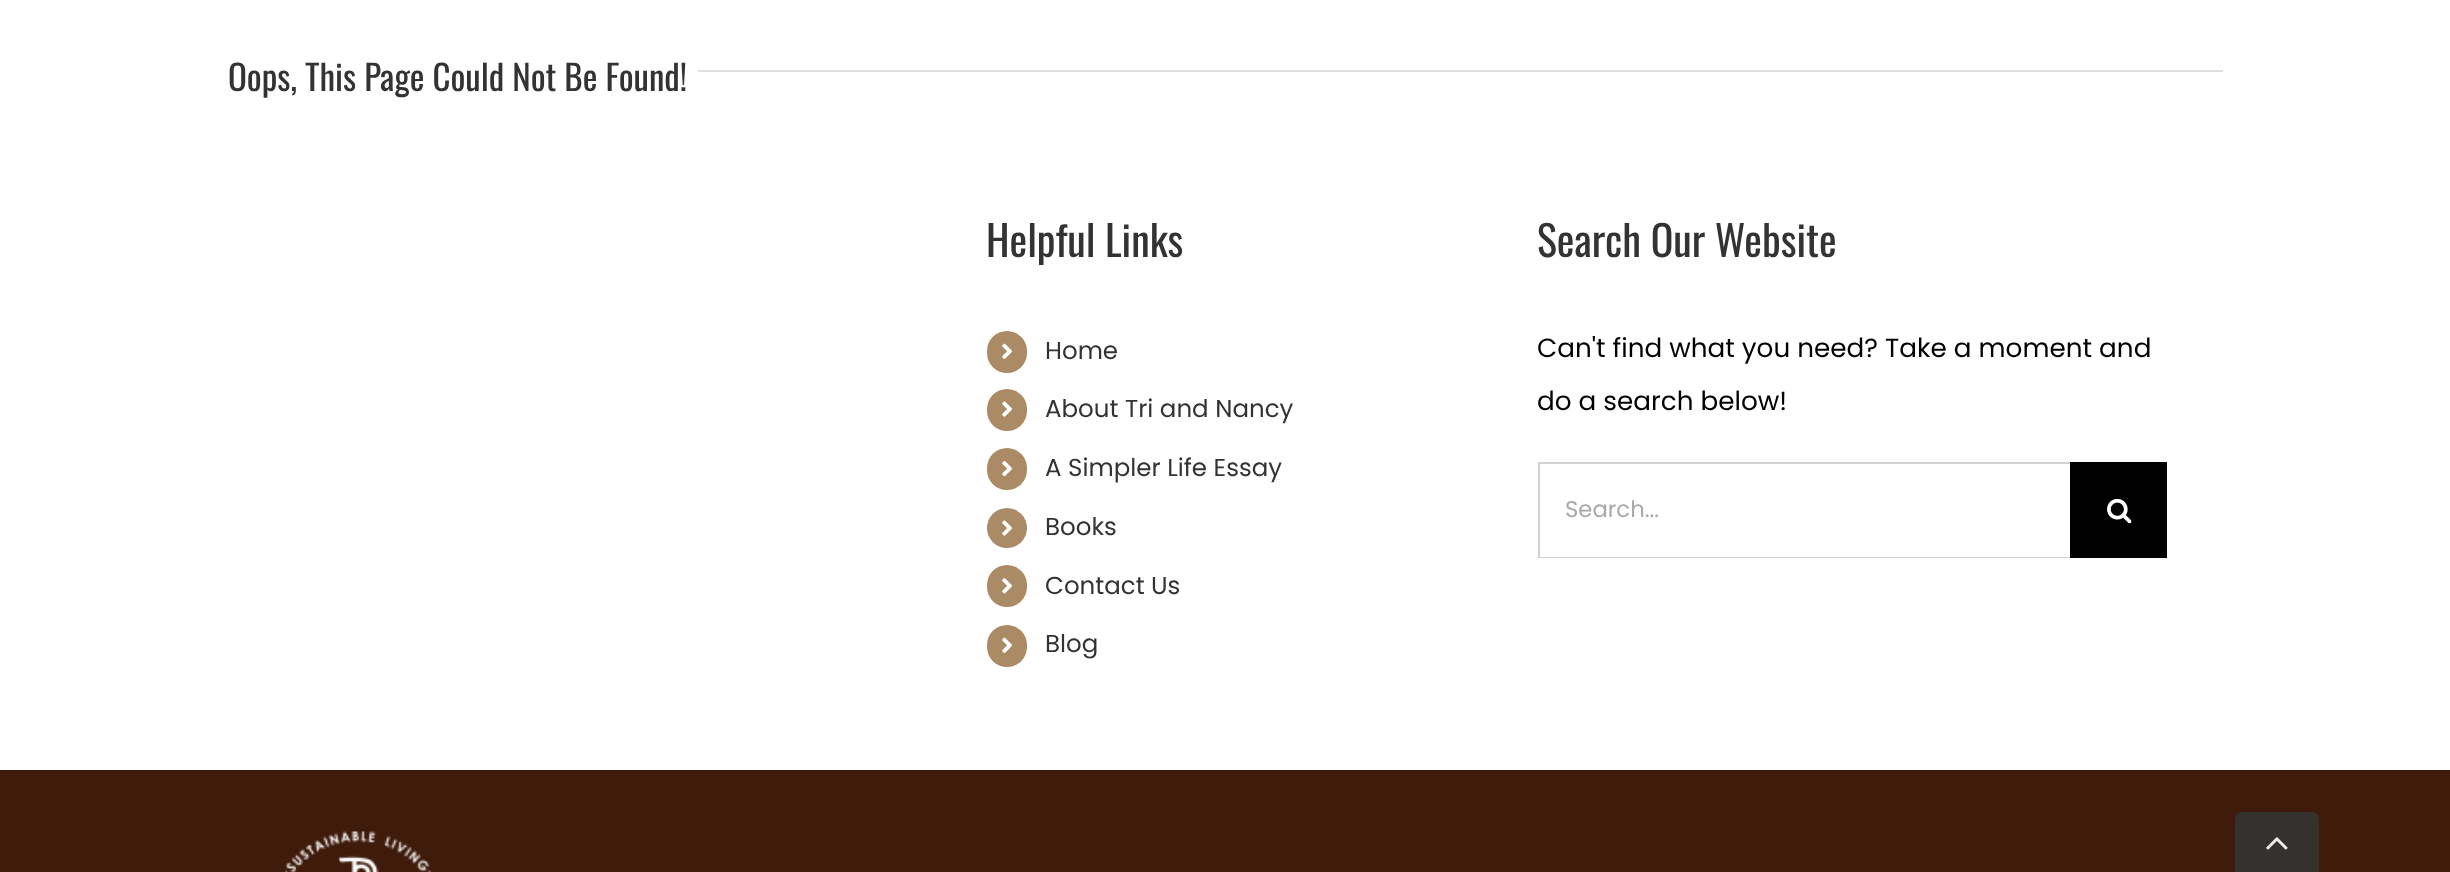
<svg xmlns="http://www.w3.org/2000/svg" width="2450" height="872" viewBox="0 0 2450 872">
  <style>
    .t1 { font: 35px Oswald; fill: #333; }
    .t2 { font: 42px Oswald; fill: #333; }
    .t3 { font: 24.5px Poppins; fill: #333; }
    .t4 { font: 26.25px Poppins; fill: #000; }
    .t5 { font: 22.75px Poppins; fill: #aaa9a9; }
  </style>
  <defs>
    <linearGradient id="g1" gradientUnits="userSpaceOnUse" x1="1003" y1="385" x2="1447" y2="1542"><stop offset="1" stop-color="#3e1b0b"/><stop offset="1" stop-color="#fff"/></linearGradient>
  </defs>
  <rect width="100%" height="100%" fill="#fff"/>
  <text x="228" y="91" class="t1">Oops, This Page Could Not Be Found!</text>
  <rect x="698" y="70" width="1525" height="2" fill="#e0dede"/>
  <text x="986" y="257" class="t2">Helpful Links</text>
  <rect x="987" y="331" width="40" height="42" rx="20" fill="#ab8b65"/>
  <image x="1002" y="343" width="10" height="16" href="images/1.png"/>
  <text x="1045" y="359" class="t3">Home</text>
  <rect x="987" y="389" width="40" height="42" rx="20" fill="#ab8b65"/>
  <image x="1002" y="401" width="10" height="16" href="images/2.png"/>
  <text x="1045" y="417" class="t3">About Tri and Nancy</text>
  <rect x="987" y="448" width="40" height="42" rx="20" fill="#ab8b65"/>
  <image x="1002" y="460" width="10" height="17" href="images/3.png"/>
  <text x="1045" y="476" class="t3">A Simpler Life Essay</text>
  <circle cx="1007" cy="528" r="20" fill="#ab8b65"/>
  <image x="1002" y="520" width="10" height="16" href="images/2.png"/>
  <text x="1045" y="535" class="t3">Books</text>
  <rect x="987" y="565" width="40" height="42" rx="20" fill="#ab8b65"/>
  <image x="1002" y="578" width="10" height="16" href="images/4.png"/>
  <text x="1045" y="594" class="t3">Contact Us</text>
  <rect x="987" y="625" width="40" height="42" rx="20" fill="#ab8b65"/>
  <image x="1002" y="637" width="10" height="16" href="images/1.png"/>
  <text x="1045" y="652" class="t3">Blog</text>
  <text x="1537" y="257" class="t2">Search Our Website</text>
  <text x="1537" y="357" class="t4">Can't find what you need? Take a moment and</text>
  <text x="1537" y="410" class="t4">do a search below!</text>
  <rect x="1538" y="462" width="532" height="2" fill="#d2d2d2"/>
  <rect x="1538" y="557" width="532" height="1" fill="#d2d2d2"/>
  <rect x="1538" y="462" width="2" height="96" fill="#d2d2d2"/>
  <text x="1565" y="517" class="t5">Search...</text>
  <rect x="2070" y="462" width="97" height="96" fill="#000"/>
  <image x="2107" y="498" width="25" height="26" href="images/5.png"/>
  <rect x="0" y="770" width="2450" height="102" fill="url(#g1)"/>
  <image x="284" y="831" width="148" height="41" href="images/6.png"/>
  <path d="M2242 812H2312C2316 812 2319 815 2319 819V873H2235V819C2235 815 2238 812 2242 812Z" fill="#34312f"/>
  <image x="2266" y="837" width="22" height="13" href="images/7.png"/>
</svg>
